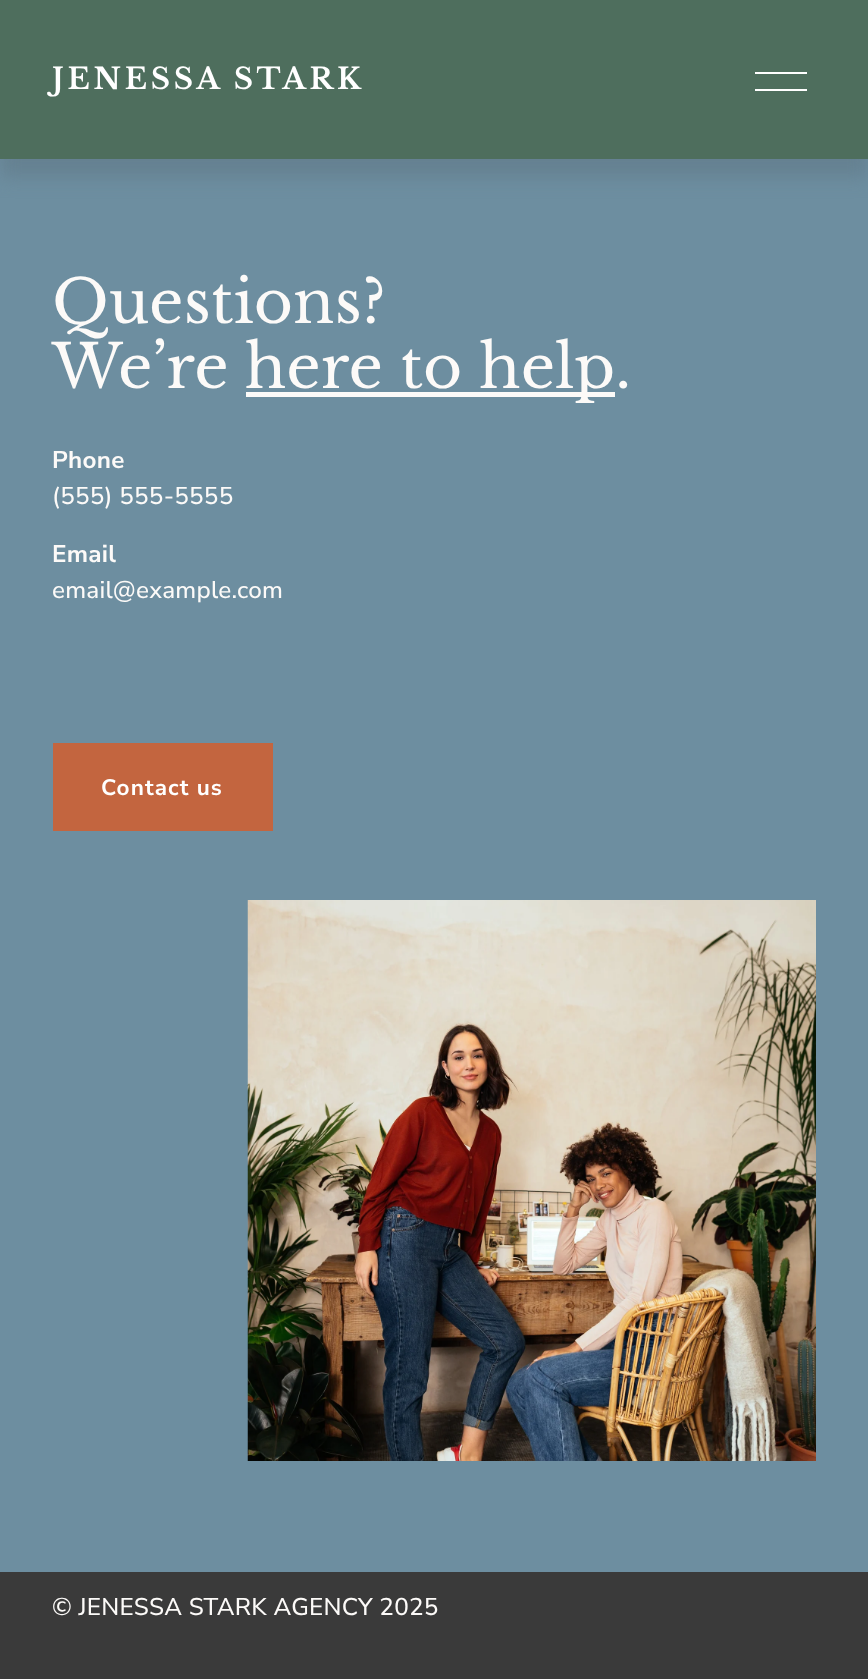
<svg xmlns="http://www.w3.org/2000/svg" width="868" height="1679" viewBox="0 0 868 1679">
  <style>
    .t1 { font: bold 29.1px Libre Baskerville; letter-spacing: 3.75px; fill: #fff; }
    .t2 { font: 60px Libre Baskerville; fill: #fcfaf8; }
    .t3 { font: bold 24.25px Nunito Sans; letter-spacing: 0.25px; fill: #fcfaf8; }
    .t4 { font: 500 24.25px Nunito Sans; letter-spacing: 0.25px; fill: #fcfaf8; }
    .t5 { font: bold 22.5px Nunito Sans; letter-spacing: 1.1px; fill: #fff; }
  </style>
  <rect width="100%" height="100%" fill="#6d8ea0"/>
  <rect x="0" y="18" width="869" height="159" fill="#658191" filter="blur(9px)"/>
  <rect x="0" y="0" width="868" height="159" fill="#4e6e5d"/>
  <text x="52" y="89" class="t1">JENESSA STARK</text>
  <rect x="755" y="72" width="52" height="2" fill="#fff"/>
  <rect x="755" y="89" width="52" height="2" fill="#fff"/>
  <text x="52" y="323" class="t2">Questions?</text>
  <text x="52" y="388" class="t2">We’re</text>
  <rect x="246" y="392" width="369" height="5" fill="#fcfaf8"/>
  <text x="245" y="388" class="t2">here to help.</text>
  <text x="52" y="468" class="t3">Phone</text>
  <text x="52" y="504" class="t4">(555) 555-5555</text>
  <text x="52" y="562" class="t3">Email</text>
  <text x="52" y="598" class="t4">email@example.com</text>
  <rect x="53" y="743" width="220" height="88" fill="#c3653f"/>
  <text x="101" y="795" class="t5">Contact us</text>
  <image x="247" y="900" width="569" height="561" href="images/1.png"/>
  <rect x="0" y="1572" width="868" height="107" fill="#3a3a3a"/>
  <text x="52" y="1615" class="t4">© JENESSA STARK AGENCY 2025</text>
</svg>
